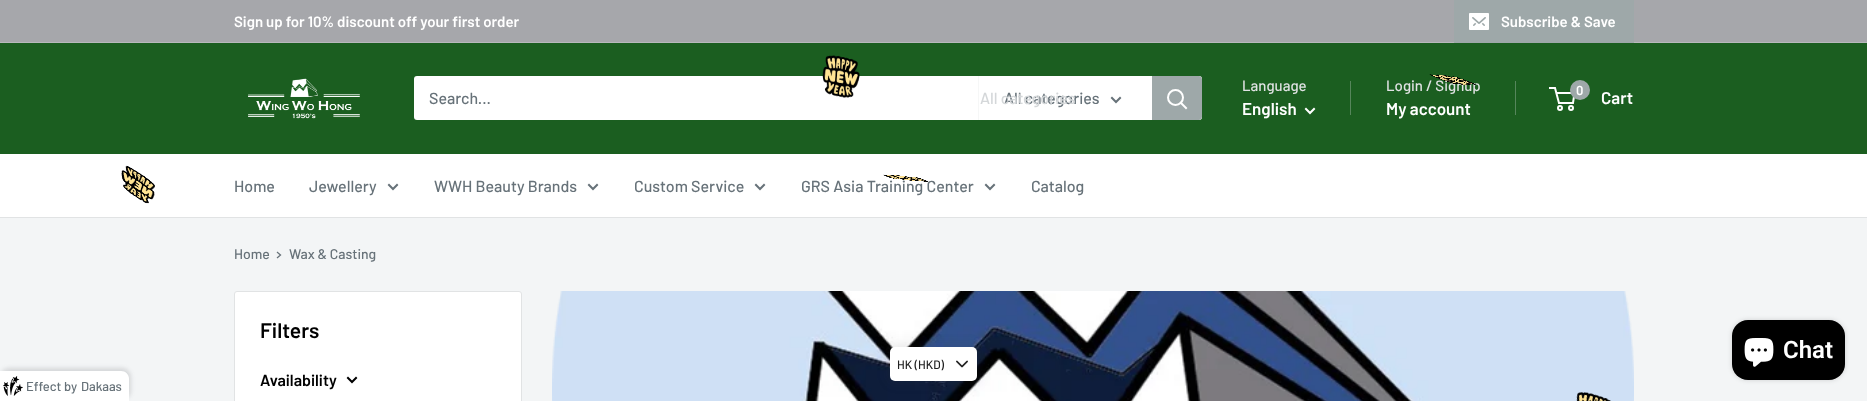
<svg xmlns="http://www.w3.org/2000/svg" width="1867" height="401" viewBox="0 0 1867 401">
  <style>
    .t1 { font: 600 15px Barlow; fill: #fff; }
    .t2 { font: 500 15px Barlow; fill: #e1e3e4; }
    .t3 { font: 500 16px Barlow; fill: #677279; }
    .t4 { font: 500 16px Barlow; fill: #d4d7d9; }
    .t5 { font: 600 17px Barlow; fill: #fff; }
    .t6 { font: 600 13px Barlow; fill: #fff; }
    .t7 { font: 500 14px Barlow; fill: #677279; }
    .t8 { font: 600 21px Barlow; fill: #000; }
    .t9 { font: 600 16px Barlow; fill: #000; }
    .t10 { font: 600 24px Roboto; fill: #fff; }
    .t11 { font: 500 12px Barlow; fill: #212121; }
    .t12 { font: 500 13px Barlow; fill: #677279; }
  </style>
  <rect width="100%" height="100%" fill="#f3f5f6"/>
  <rect x="0" y="0" width="1867" height="42" fill="#a6a7ab"/>
  <rect x="0" y="42" width="1867" height="1" fill="#b8b9bc"/>
  <text x="234" y="27" class="t1">Sign up for 10% discount off your first order</text>
  <rect x="1454" y="0" width="180" height="43" fill="#9ea8a9"/>
  <image x="1469" y="13" width="20" height="17" href="images/1.png"/>
  <text x="1501" y="27" class="t1">Subscribe &amp; Save</text>
  <rect x="0" y="43" width="1867" height="111" fill="#1b5e20"/>
  <rect x="414" y="76" width="788" height="44" rx="3" fill="#fff"/>
  <image x="822" y="55" width="38" height="43" href="images/2.png"/>
  <text x="1386" y="91" class="t2">Login / Signup</text>
  <image x="1429" y="74" width="47" height="11" href="images/3.png"/>
  <rect x="0" y="154" width="1867" height="63" fill="#fff"/>
  <image x="121" y="165" width="34" height="39" href="images/4.png"/>
  <text x="801" y="192" class="t3">GRS Asia Training Center</text>
  <image x="883" y="174" width="45" height="8" href="images/5.png"/>
  <image x="552" y="291" width="1082" height="110" href="images/8.png"/>
  <image x="1576" y="392" width="35" height="9" href="images/6.png"/>
  <image x="248" y="78" width="112" height="41" href="images/7.png"/>
  <text x="429" y="104" class="t3">Search...</text>
  <rect x="978" y="76" width="1" height="44" fill="#f6f7f7"/>
  <text x="1004" y="104" class="t3">All categories</text>
  <text x="980" y="104" class="t4">All categories</text>
  <path d="M1120 98L1116 102L1112 98" fill="none" stroke="#677279" stroke-width="2" stroke-linecap="square"/>
  <path d="M1152 76H1199C1200.5 76 1202 77.5 1202 79V117C1202 118.5 1200.5 120 1199 120H1152Z" fill="#9ea8a9"/>
  <path d="M1186 108L1181 103" fill="none" stroke="#fff" stroke-width="2" stroke-linecap="square"/>
  <circle cx="1175.5" cy="97.5" r="7.5" fill="none" stroke="#fff" stroke-width="2"/>
  <text x="1242" y="91" class="t2">Language</text>
  <text x="1242" y="115" class="t5">English</text>
  <path d="M1314 109L1310 113L1306 109" fill="none" stroke="#fff" stroke-width="2" stroke-linecap="square"/>
  <rect x="1350" y="81" width="1" height="34" fill="#56865b"/>
  <rect x="1515" y="81" width="1" height="34" fill="#56865b"/>
  <text x="1386" y="115" class="t5">My account</text>
  <circle cx="1560" cy="108" r="2" fill="none" stroke="#fff" stroke-width="2"/>
  <circle cx="1571" cy="108" r="2" fill="none" stroke="#fff" stroke-width="2"/>
  <path d="M1556.5 93H1574.5L1573 103H1559L1555 88H1549" fill="none" stroke="#fff" stroke-width="2"/>
  <circle cx="1580" cy="90" r="10" fill="#9ea8a9"/>
  <text x="1576" y="95" class="t6">0</text>
  <text x="1601" y="104" class="t5">Cart</text>
  <rect x="0" y="217" width="1867" height="1" fill="#e1e3e4"/>
  <text x="234" y="192" class="t3">Home</text>
  <text x="309" y="192" class="t3">Jewellery</text>
  <path d="M397 185L393 189L389 185" fill="none" stroke="#677279" stroke-width="2" stroke-linecap="square"/>
  <text x="434" y="192" class="t3">WWH Beauty Brands</text>
  <path d="M597 185L593 189L589 185" fill="none" stroke="#677279" stroke-width="2" stroke-linecap="square"/>
  <text x="634" y="192" class="t3">Custom Service</text>
  <path d="M764 185L760 189L756 185" fill="none" stroke="#677279" stroke-width="2" stroke-linecap="square"/>
  <path d="M994 185L990 189L986 185" fill="none" stroke="#677279" stroke-width="2" stroke-linecap="square"/>
  <text x="1031" y="192" class="t3">Catalog</text>
  <text x="234" y="259" class="t7">Home</text>
  <path d="M277.5 252.5L280.5 255L277.5 257.5" fill="none" stroke="#677279" stroke-width="1.3" stroke-linecap="square"/>
  <text x="289" y="259" class="t7">Wax &amp; Casting</text>
  <rect x="234.5" y="291.5" width="287" height="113" rx="2.5" fill="#fff" stroke="#e1e3e4"/>
  <text x="260" y="338" class="t8">Filters</text>
  <text x="260" y="386" class="t9">Availability</text>
  <path d="M356 378L352 382L348 378" fill="none" stroke="#000" stroke-width="2" stroke-linecap="square"/>
  <rect x="1732" y="320" width="113" height="60" rx="16" fill="#00000026" filter="blur(2.5px)"/>
  <rect x="1732" y="320" width="113" height="60" rx="16" fill="#000"/>
  <image x="1744" y="338" width="30" height="29" href="images/9.png"/>
  <text x="1783" y="358" class="t10">Chat</text>
  <rect x="886" y="343" width="95" height="42" rx="9" fill="#3c3c3c17" filter="blur(5px)"/>
  <rect x="890" y="347" width="87" height="34" rx="5" fill="#fff"/>
  <text x="897" y="369" class="t11">HK (HKD)</text>
  <image x="956" y="360" width="12" height="8" href="images/10.png"/>
  <rect x="0" y="368" width="131" height="32" rx="9" fill="#403c4329" filter="blur(2px)"/>
  <path d="M0 371H121C125.5 371 129 374.5 129 379V401H0Z" fill="#fff"/>
  <image x="3" y="376" width="20" height="20" href="images/11.png"/>
  <text x="26" y="391" class="t12">Effect</text>
  <text x="64" y="391" class="t12">by</text>
  <text x="81" y="391" class="t12">Dakaas</text>
</svg>
